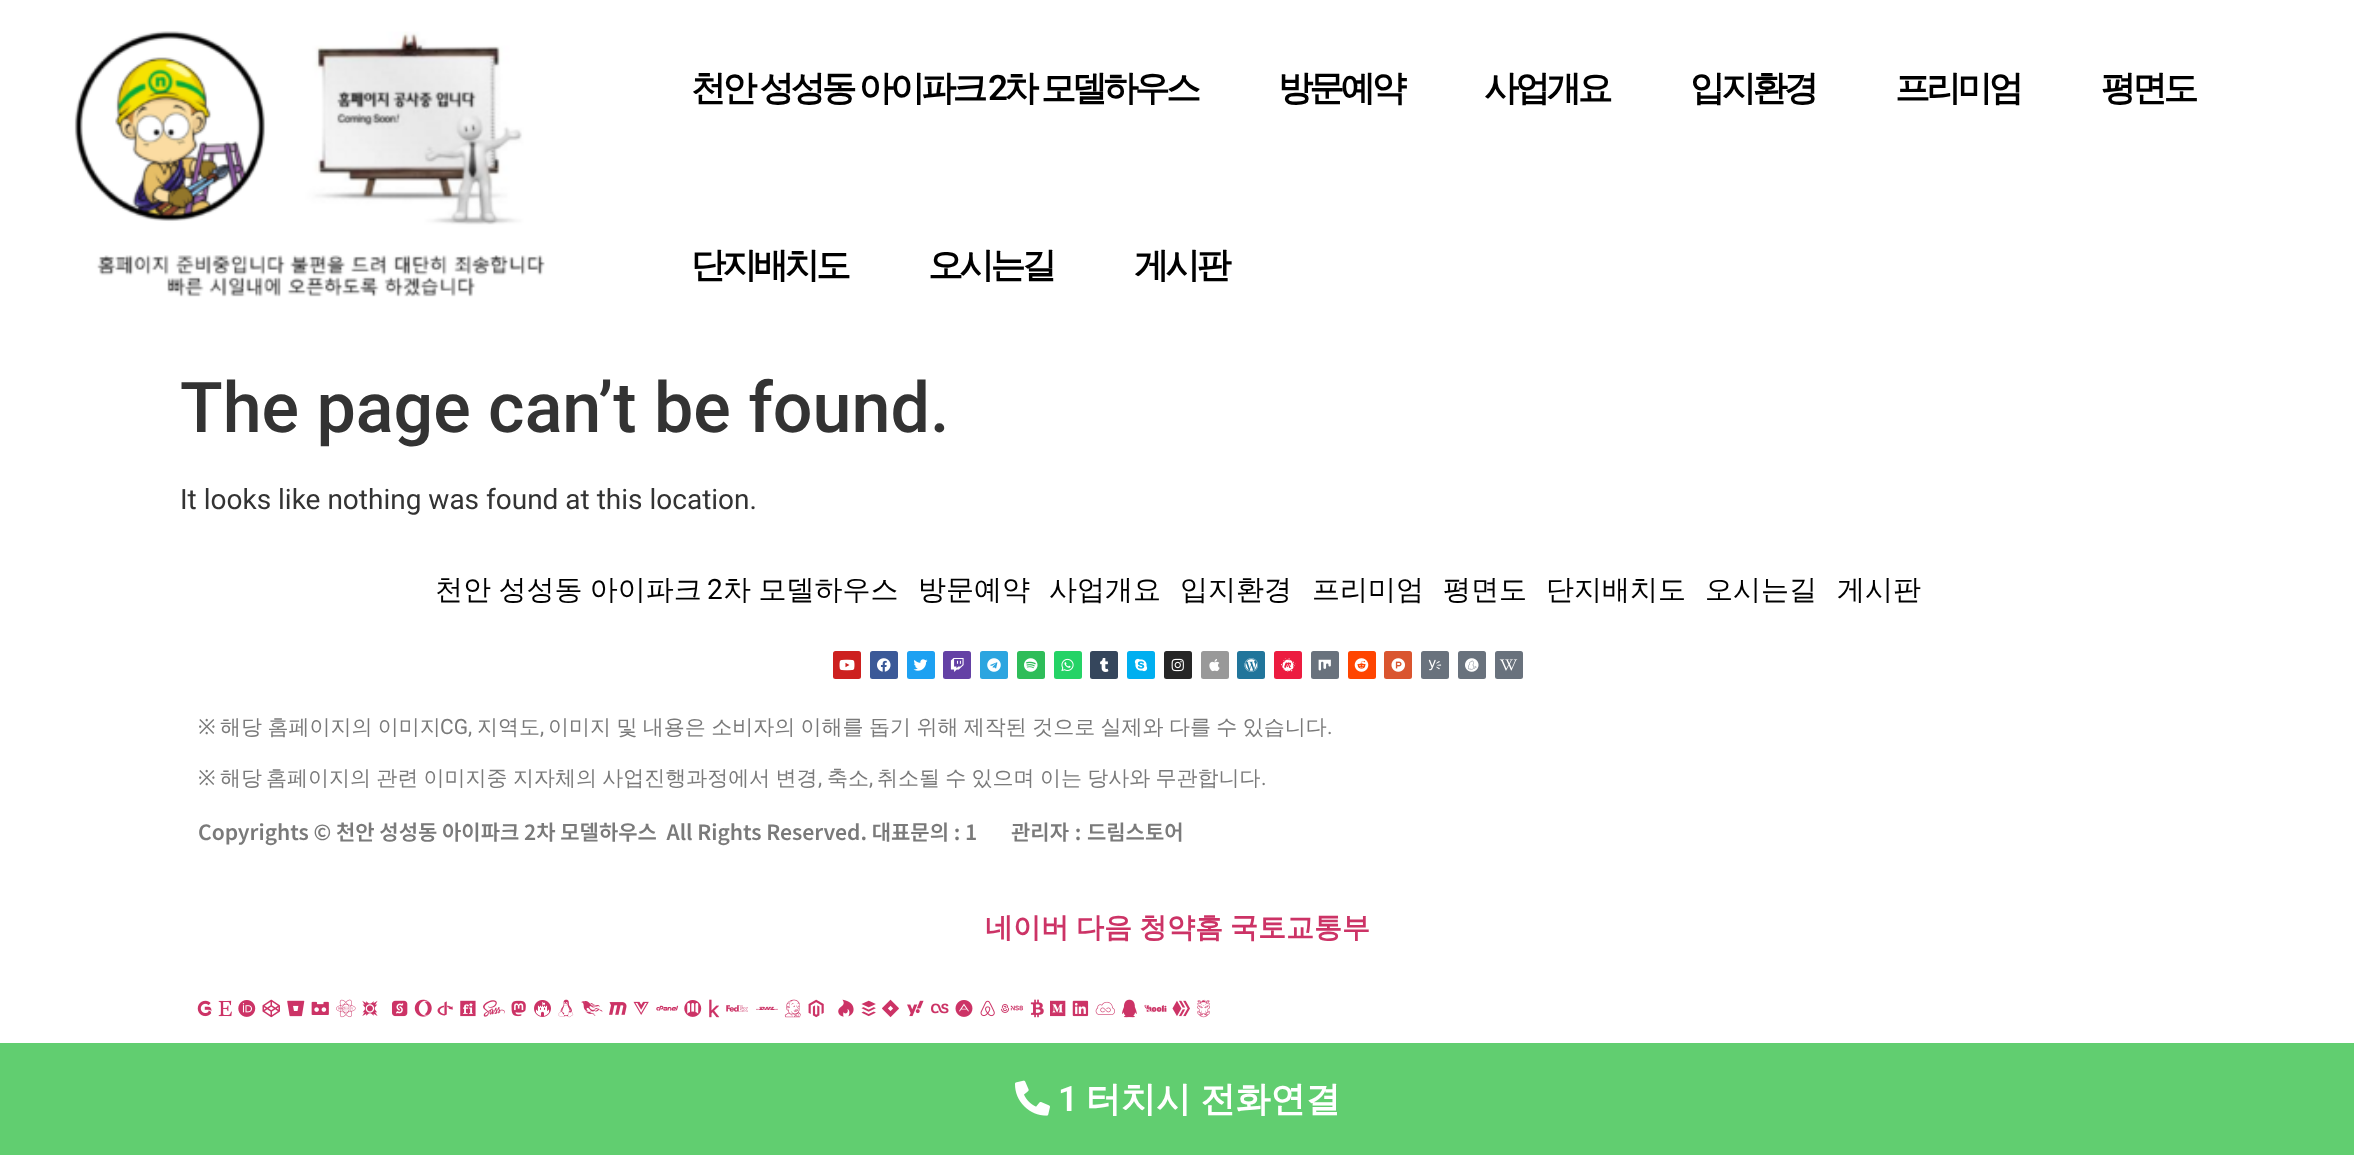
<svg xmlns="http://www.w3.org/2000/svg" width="2354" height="1155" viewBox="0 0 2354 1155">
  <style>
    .t1 { font: bold 35px WenQuanYi Zen Hei; letter-spacing: -3.75px; fill: #000; }
    .t2 { font: 600 35px Roboto; letter-spacing: -3.75px; fill: #000; }
    .t3 { font: 500 70px Roboto; fill: #333; }
    .t4 { font: 28px Roboto; fill: #333; }
    .t5 { font: 500 28px WenQuanYi Zen Hei; fill: #000; }
    .t6 { font: 28px Roboto; fill: #000; }
    .t7 { font: 21px Noto Sans; fill: #7a7a7a; }
    .t8 { font: 500 21px WenQuanYi Zen Hei; fill: #7a7a7a; }
    .t9 { font: 21px Roboto; fill: #7a7a7a; }
    .t10 { font: 600 21px Noto Sans KR; fill: #7a7a7a; }
    .t11 { font: bold 28px WenQuanYi Zen Hei; fill: #c36; }
    .t12 { font: 600 35px Roboto; fill: #fff; }
    .t13 { font: bold 35px WenQuanYi Zen Hei; fill: #fff; }
  </style>
  <rect width="100%" height="100%" fill="#fff"/>
  <image x="74" y="31" width="471" height="266" href="images/1.png"/>
  <text x="691" y="100" word-spacing="-1" class="t1">천안 성성동 아이파크</text>
  <text x="988" y="100" class="t2">2</text>
  <text x="1004" y="100" word-spacing="-1" class="t1">차 모델하우스</text>
  <text x="1278" y="100" class="t1">방문예약</text>
  <text x="1484" y="100" class="t1">사업개요</text>
  <text x="1690" y="100" class="t1">입지환경</text>
  <text x="1895" y="100" class="t1">프리미엄</text>
  <text x="2101" y="100" class="t1">평면도</text>
  <text x="691" y="277" class="t1">단지배치도</text>
  <text x="928" y="277" class="t1">오시는길</text>
  <text x="1134" y="277" class="t1">게시판</text>
  <text x="180" y="432" class="t3">The page can’t be found.</text>
  <text x="180" y="509" class="t4">It looks like nothing was found at this location.</text>
  <text x="435" y="599" word-spacing="-1" class="t5">천안 성성동 아이파크</text>
  <text x="707" y="599" class="t6">2</text>
  <text x="723" y="599" word-spacing="-1" class="t5">차 모델하우스</text>
  <text x="918" y="599" class="t5">방문예약</text>
  <text x="1049" y="599" class="t5">사업개요</text>
  <text x="1180" y="599" class="t5">입지환경</text>
  <text x="1312" y="599" class="t5">프리미엄</text>
  <text x="1443" y="599" class="t5">평면도</text>
  <text x="1546" y="599" class="t5">단지배치도</text>
  <text x="1705" y="599" class="t5">오시는길</text>
  <text x="1837" y="599" class="t5">게시판</text>
  <rect x="833" y="651" width="28" height="28" rx="2.5" fill="#cd201f"/>
  <image x="839" y="659" width="16" height="12" href="images/2.png"/>
  <rect x="870" y="651" width="28" height="28" rx="2.5" fill="#3b5998"/>
  <image x="877" y="658" width="14" height="14" href="images/3.png"/>
  <rect x="907" y="651" width="28" height="28" rx="2.5" fill="#1da1f2"/>
  <image x="913" y="659" width="15" height="12" href="images/4.png"/>
  <rect x="943" y="651" width="28" height="28" rx="2.5" fill="#6441a5"/>
  <image x="950" y="658" width="14" height="14" href="images/5.png"/>
  <rect x="980" y="651" width="28" height="28" rx="2.5" fill="#2ca5e0"/>
  <image x="987" y="658" width="14" height="14" href="images/6.png"/>
  <rect x="1017" y="651" width="28" height="28" rx="2.5" fill="#2ebd59"/>
  <image x="1024" y="658" width="14" height="14" href="images/7.png"/>
  <rect x="1054" y="651" width="28" height="28" rx="2.5" fill="#25d366"/>
  <image x="1061" y="658" width="13" height="14" href="images/8.png"/>
  <rect x="1090" y="651" width="28" height="28" rx="2.5" fill="#35465c"/>
  <image x="1100" y="658" width="9" height="14" href="images/9.png"/>
  <rect x="1127" y="651" width="28" height="28" rx="2.5" fill="#00aff0"/>
  <image x="1134" y="658" width="14" height="14" href="images/10.png"/>
  <rect x="1164" y="651" width="28" height="28" rx="2.5" fill="#262626"/>
  <image x="1171" y="658" width="13" height="14" href="images/11.png"/>
  <rect x="1201" y="651" width="28" height="28" rx="2.5" fill="#999"/>
  <image x="1209" y="659" width="11" height="13" href="images/12.png"/>
  <rect x="1237" y="651" width="28" height="28" rx="2.5" fill="#21759b"/>
  <image x="1244" y="658" width="14" height="14" href="images/13.png"/>
  <rect x="1274" y="651" width="28" height="28" rx="2.5" fill="#ec1c40"/>
  <image x="1281" y="658" width="15" height="14" href="images/14.png"/>
  <rect x="1311" y="651" width="28" height="28" rx="2.5" fill="#69727d"/>
  <image x="1318" y="659" width="13" height="12" href="images/15.png"/>
  <rect x="1348" y="651" width="28" height="28" rx="2.5" fill="#ff4500"/>
  <image x="1354" y="658" width="15" height="14" href="images/16.png"/>
  <rect x="1384" y="651" width="28" height="28" rx="2.5" fill="#da552f"/>
  <image x="1391" y="658" width="14" height="14" href="images/17.png"/>
  <rect x="1421" y="651" width="28" height="28" rx="2.5" fill="#69727d"/>
  <image x="1428" y="659" width="14" height="12" href="images/18.png"/>
  <rect x="1458" y="651" width="28" height="28" rx="2.5" fill="#69727d"/>
  <image x="1465" y="658" width="14" height="14" href="images/19.png"/>
  <rect x="1495" y="651" width="28" height="28" rx="2.5" fill="#69727d"/>
  <image x="1499" y="659" width="19" height="12" href="images/20.png"/>
  <text x="198" y="734" class="t7">※</text>
  <text x="220" y="734" word-spacing="-0.9" class="t8">해당 홈페이지의 이미지</text>
  <text x="440" y="734" class="t9">CG,</text>
  <text x="477" y="734" class="t8">지역도</text>
  <text x="540" y="734" class="t9">,</text>
  <text x="548" y="734" word-spacing="-0.9" class="t8">이미지 및 내용은 소비자의 이해를 돕기 위해 제작된 것으로 실제와 다를 수 있습니다</text>
  <text x="1327" y="734" class="t9">.</text>
  <text x="198" y="785" class="t7">※</text>
  <text x="220" y="785" class="t8">해당</text>
  <text x="266" y="785" word-spacing="-1" class="t8">홈페이지의 관련 이미지중 지자체의 사업진행과정에서 변경</text>
  <text x="818" y="785" class="t9">,</text>
  <text x="827" y="785" class="t8">축소</text>
  <text x="869" y="785" class="t9">,</text>
  <text x="877" y="785" word-spacing="-1" class="t8">취소될 수 있으며 이는 당사와 무관합니다</text>
  <text x="1261" y="785" class="t9">.</text>
  <text x="198" y="840" class="t10" xml:space="preserve">Copyrights © 천안 성성동 아이파크 2차 모델하우스  All Rights Reserved. 대표문의 : 1</text>
  <text x="1011" y="840" word-spacing="1" class="t10">관리자 : 드림스토어</text>
  <text x="985" y="937" class="t11">네이버</text>
  <text x="1076" y="937" class="t11">다음</text>
  <text x="1139" y="937" class="t11">청약홈</text>
  <text x="1230" y="937" class="t11">국토교통부</text>
  <image x="197" y="1000" width="15" height="17" href="images/21.png"/>
  <image x="218" y="1000" width="14" height="17" href="images/22.png"/>
  <image x="238" y="1000" width="18" height="17" href="images/23.png"/>
  <image x="262" y="999" width="18" height="19" href="images/24.png"/>
  <image x="287" y="1000" width="18" height="17" href="images/25.png"/>
  <image x="311" y="1001" width="18" height="14" href="images/26.png"/>
  <image x="336" y="999" width="20" height="19" href="images/27.png"/>
  <image x="362" y="1000" width="16" height="16" href="images/28.png"/>
  <image x="392" y="1000" width="16" height="17" href="images/29.png"/>
  <image x="414" y="999" width="18" height="18" href="images/30.png"/>
  <image x="437" y="1001" width="16" height="15" href="images/31.png"/>
  <image x="460" y="1000" width="16" height="17" href="images/32.png"/>
  <image x="483" y="1000" width="22" height="17" href="images/33.png"/>
  <image x="511" y="1000" width="15" height="17" href="images/34.png"/>
  <image x="534" y="1000" width="17" height="17" href="images/35.png"/>
  <image x="558" y="999" width="16" height="19" href="images/36.png"/>
  <image x="581" y="1001" width="22" height="15" href="images/37.png"/>
  <image x="609" y="1002" width="18" height="13" href="images/38.png"/>
  <image x="633" y="1001" width="16" height="14" href="images/39.png"/>
  <image x="656" y="1005" width="23" height="6" href="images/40.png"/>
  <image x="684" y="1000" width="18" height="17" href="images/41.png"/>
  <image x="709" y="999" width="11" height="19" href="images/42.png"/>
  <image x="726" y="1005" width="22" height="7" href="images/43.png"/>
  <image x="756" y="1006" width="22" height="4" href="images/44.png"/>
  <image x="784" y="999" width="17" height="19" href="images/45.png"/>
  <image x="808" y="999" width="16" height="19" href="images/46.png"/>
  <image x="838" y="999" width="16" height="18" href="images/47.png"/>
  <image x="861" y="1000" width="15" height="17" href="images/48.png"/>
  <image x="882" y="999" width="17" height="19" href="images/49.png"/>
  <image x="907" y="1000" width="17" height="17" href="images/50.png"/>
  <image x="931" y="1003" width="18" height="11" href="images/51.png"/>
  <image x="955" y="1000" width="18" height="17" href="images/52.png"/>
  <image x="980" y="1000" width="15" height="17" href="images/53.png"/>
  <image x="1001" y="1004" width="22" height="9" href="images/54.png"/>
  <image x="1030" y="999" width="14" height="19" href="images/55.png"/>
  <image x="1050" y="1000" width="16" height="17" href="images/56.png"/>
  <image x="1072" y="1000" width="17" height="17" href="images/57.png"/>
  <image x="1095" y="1001" width="20" height="14" href="images/58.png"/>
  <image x="1122" y="999" width="15" height="19" href="images/59.png"/>
  <image x="1144" y="1004" width="23" height="9" href="images/60.png"/>
  <image x="1172" y="1000" width="18" height="17" href="images/61.png"/>
  <image x="1197" y="999" width="13" height="19" href="images/62.png"/>
  <rect x="0" y="1043" width="2354" height="112" fill="#61ce70"/>
  <image x="1015" y="1080" width="35" height="36" href="images/63.png"/>
  <text x="1058" y="1111" class="t12">1</text>
  <text x="1086" y="1111" word-spacing="-0.9" class="t13">터치시 전화연결</text>
</svg>
